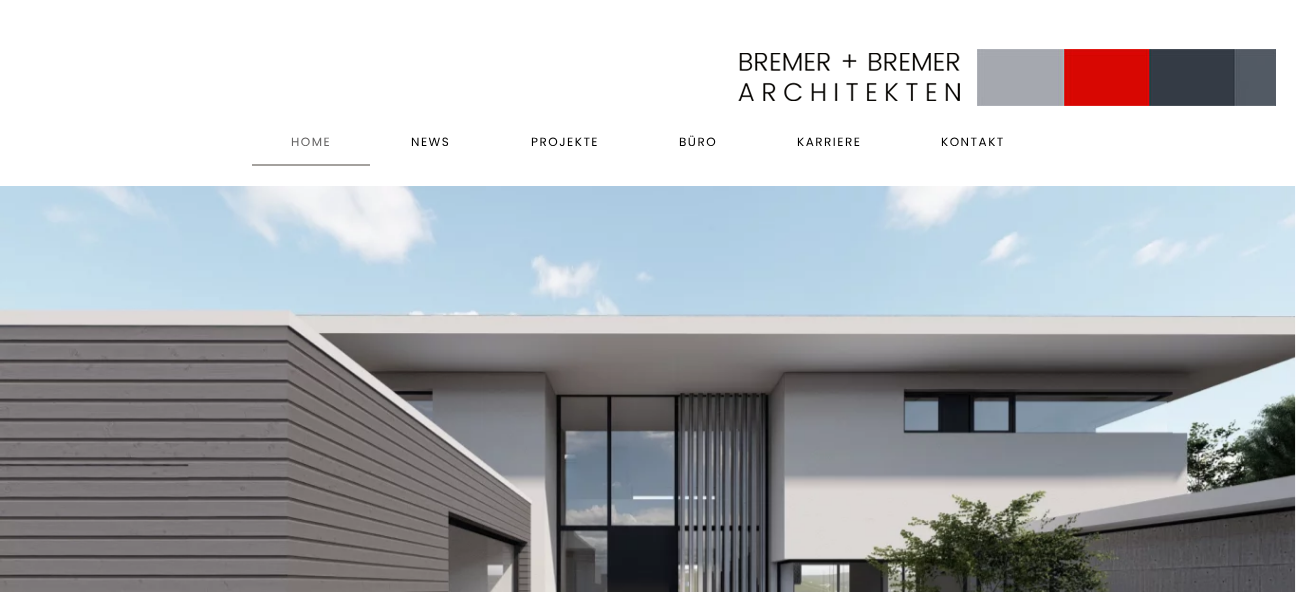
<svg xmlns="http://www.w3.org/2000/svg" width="1296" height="592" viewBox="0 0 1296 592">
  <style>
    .t1 { font: 12px Poppins; letter-spacing: 1.5px; fill: #666565; }
    .t2 { font: 12px Poppins; letter-spacing: 1.5px; fill: #000; }
  </style>
  <rect width="100%" height="100%" fill="#fff"/>
  <image x="738" y="49" width="538" height="57" href="images/1.png"/>
  <text x="291" y="146" class="t1">HOME</text>
  <rect x="252" y="164" width="118" height="2" fill="#a4a19e"/>
  <text x="411" y="146" class="t2">NEWS</text>
  <text x="531" y="146" class="t2">PROJEKTE</text>
  <text x="679" y="146" class="t2">BÜRO</text>
  <text x="797" y="146" class="t2">KARRIERE</text>
  <text x="941" y="146" class="t2">KONTAKT</text>
  <image x="0" y="186" width="1296" height="406" href="images/2.png"/>
</svg>
